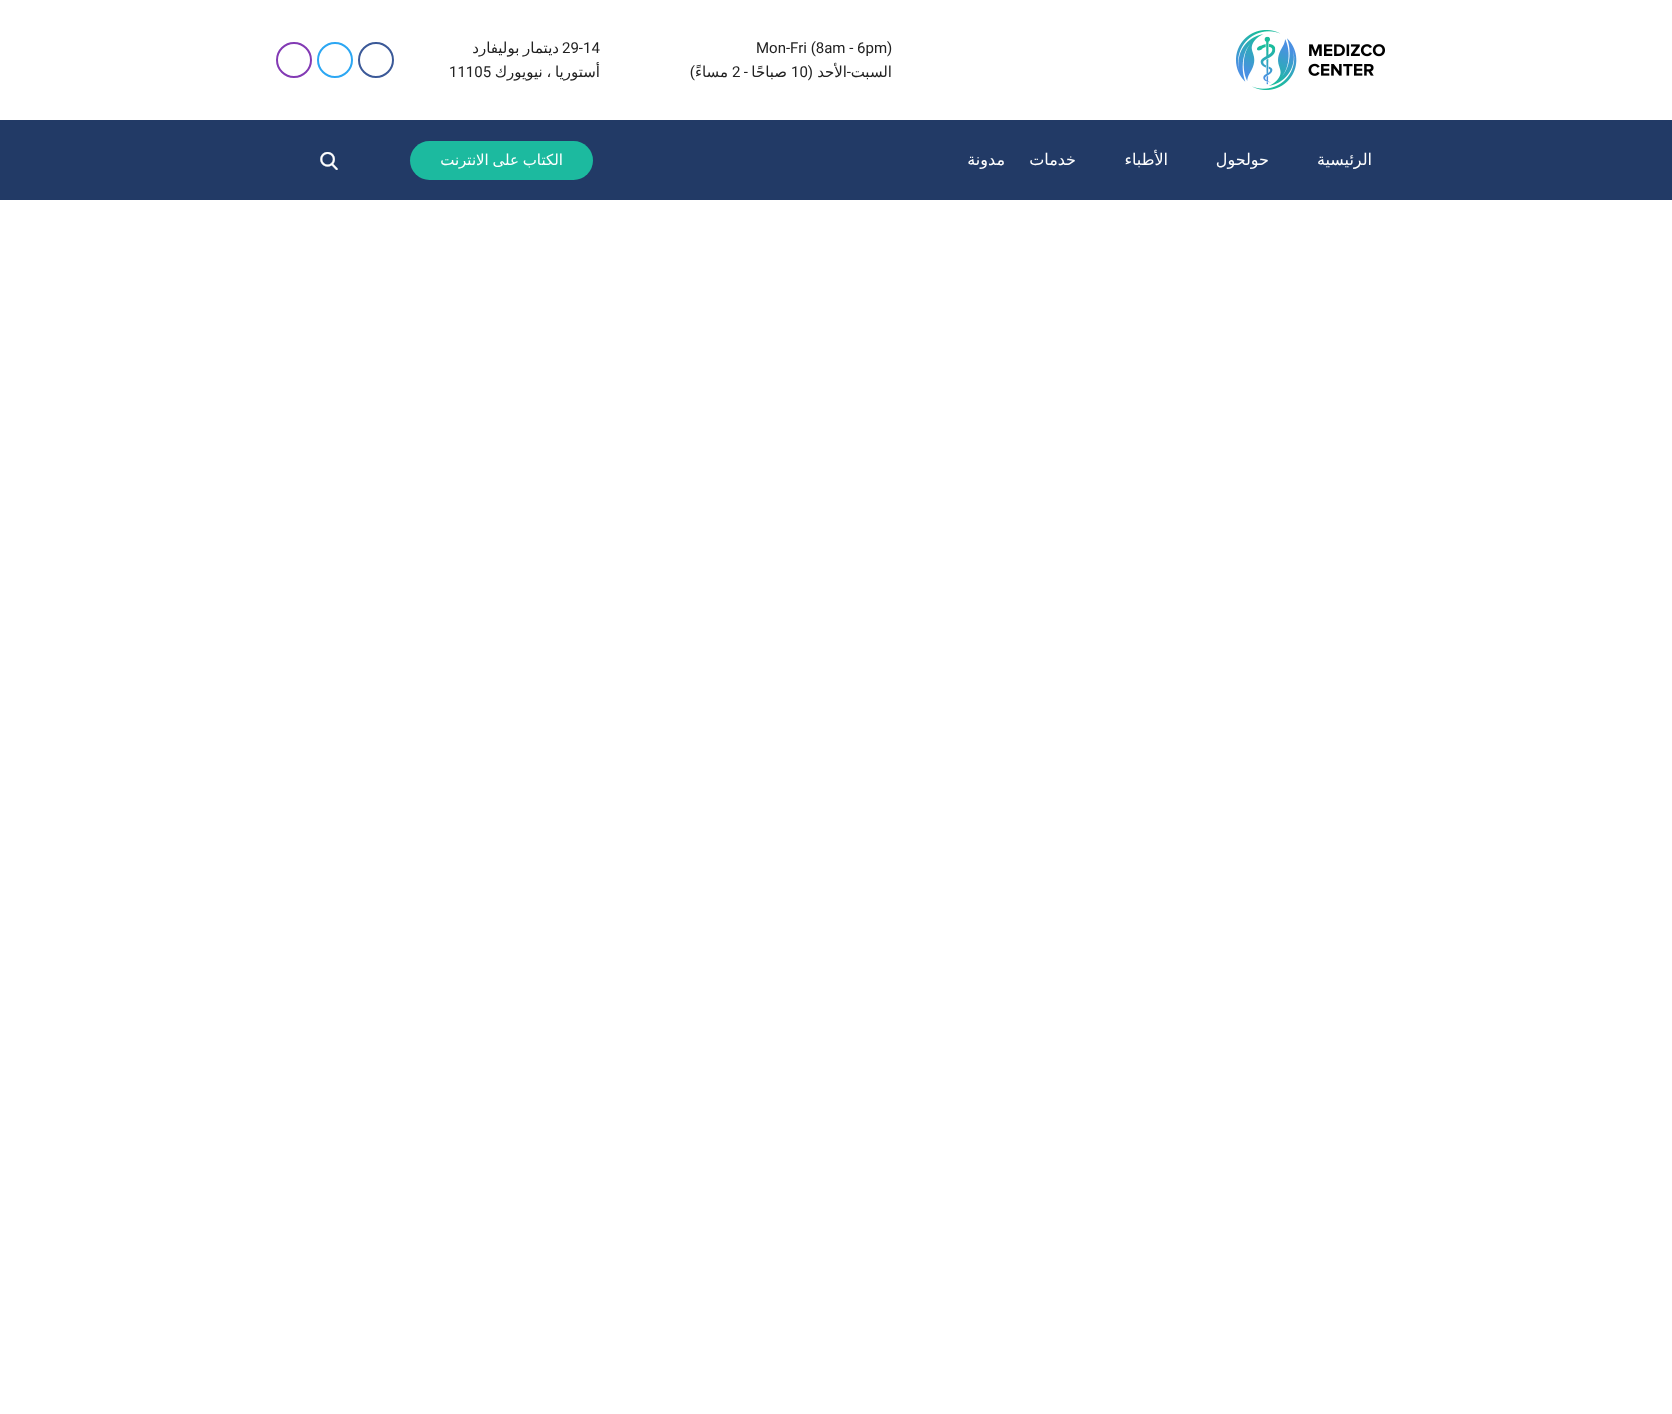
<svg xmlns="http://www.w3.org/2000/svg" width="1672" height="1414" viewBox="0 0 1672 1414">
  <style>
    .t1 { font: 15px Roboto; fill: #222; }
    .t2 { font: 15px DejaVu Sans; direction: rtl; fill: #222; }
    .t3 { font: 15px Roboto; direction: rtl; fill: #222; }
    .t4 { font: 16px DejaVu Sans; direction: rtl; fill: #fff; }
    .t5 { font: 15px DejaVu Sans; direction: rtl; fill: #fff; }
  </style>
  <rect width="100%" height="100%" fill="#fff"/>
  <image x="1236" y="30" width="149" height="60" href="images/1.png"/>
  <text x="756" y="53" class="t1">Mon-Fri (8am - 6pm)</text>
  <text x="892" y="77" class="t2">السبت</text>
  <text x="851" y="77" class="t3">-</text>
  <text x="847" y="77" class="t2">الأحد</text>
  <text x="813" y="77" class="t3">(</text>
  <text x="791" y="77" class="t1">10</text>
  <text x="787" y="77" class="t2">صباحًا</text>
  <text x="748" y="77" class="t3">-</text>
  <text x="732" y="77" class="t1">2</text>
  <text x="728" y="77" class="t2">مساءً</text>
  <text x="695" y="77" class="t3">)</text>
  <text x="562" y="53" class="t1">29-14</text>
  <text x="559" y="53" word-spacing="-1" class="t2">ديتمار بوليفارد</text>
  <text x="600" y="77" word-spacing="-1" class="t2">أستوريا ، نيويورك</text>
  <text x="449" y="77" class="t1">11105</text>
  <circle cx="376" cy="60" r="17" fill="none" stroke="#3b5998" stroke-width="2"/>
  <circle cx="335" cy="60" r="17" fill="none" stroke="#2ca7f3" stroke-width="2"/>
  <circle cx="294" cy="60" r="17" fill="none" stroke="#833ab4" stroke-width="2"/>
  <rect x="0" y="120" width="1672" height="80" fill="#223a66"/>
  <text x="1372" y="165" class="t4">الرئيسية</text>
  <text x="1269" y="165" class="t4">حولحول</text>
  <text x="1168" y="165" class="t4">الأطباء</text>
  <text x="1076" y="165" class="t4">خدمات</text>
  <text x="1005" y="165" class="t4">مدونة</text>
  <rect x="410" y="141" width="183" height="39" rx="19.5" fill="#1cba9f"/>
  <text x="563" y="165" word-spacing="-1" class="t5">الكتاب على الانترنت</text>
  <image x="320" y="152" width="18" height="18" href="images/2.png"/>
</svg>
